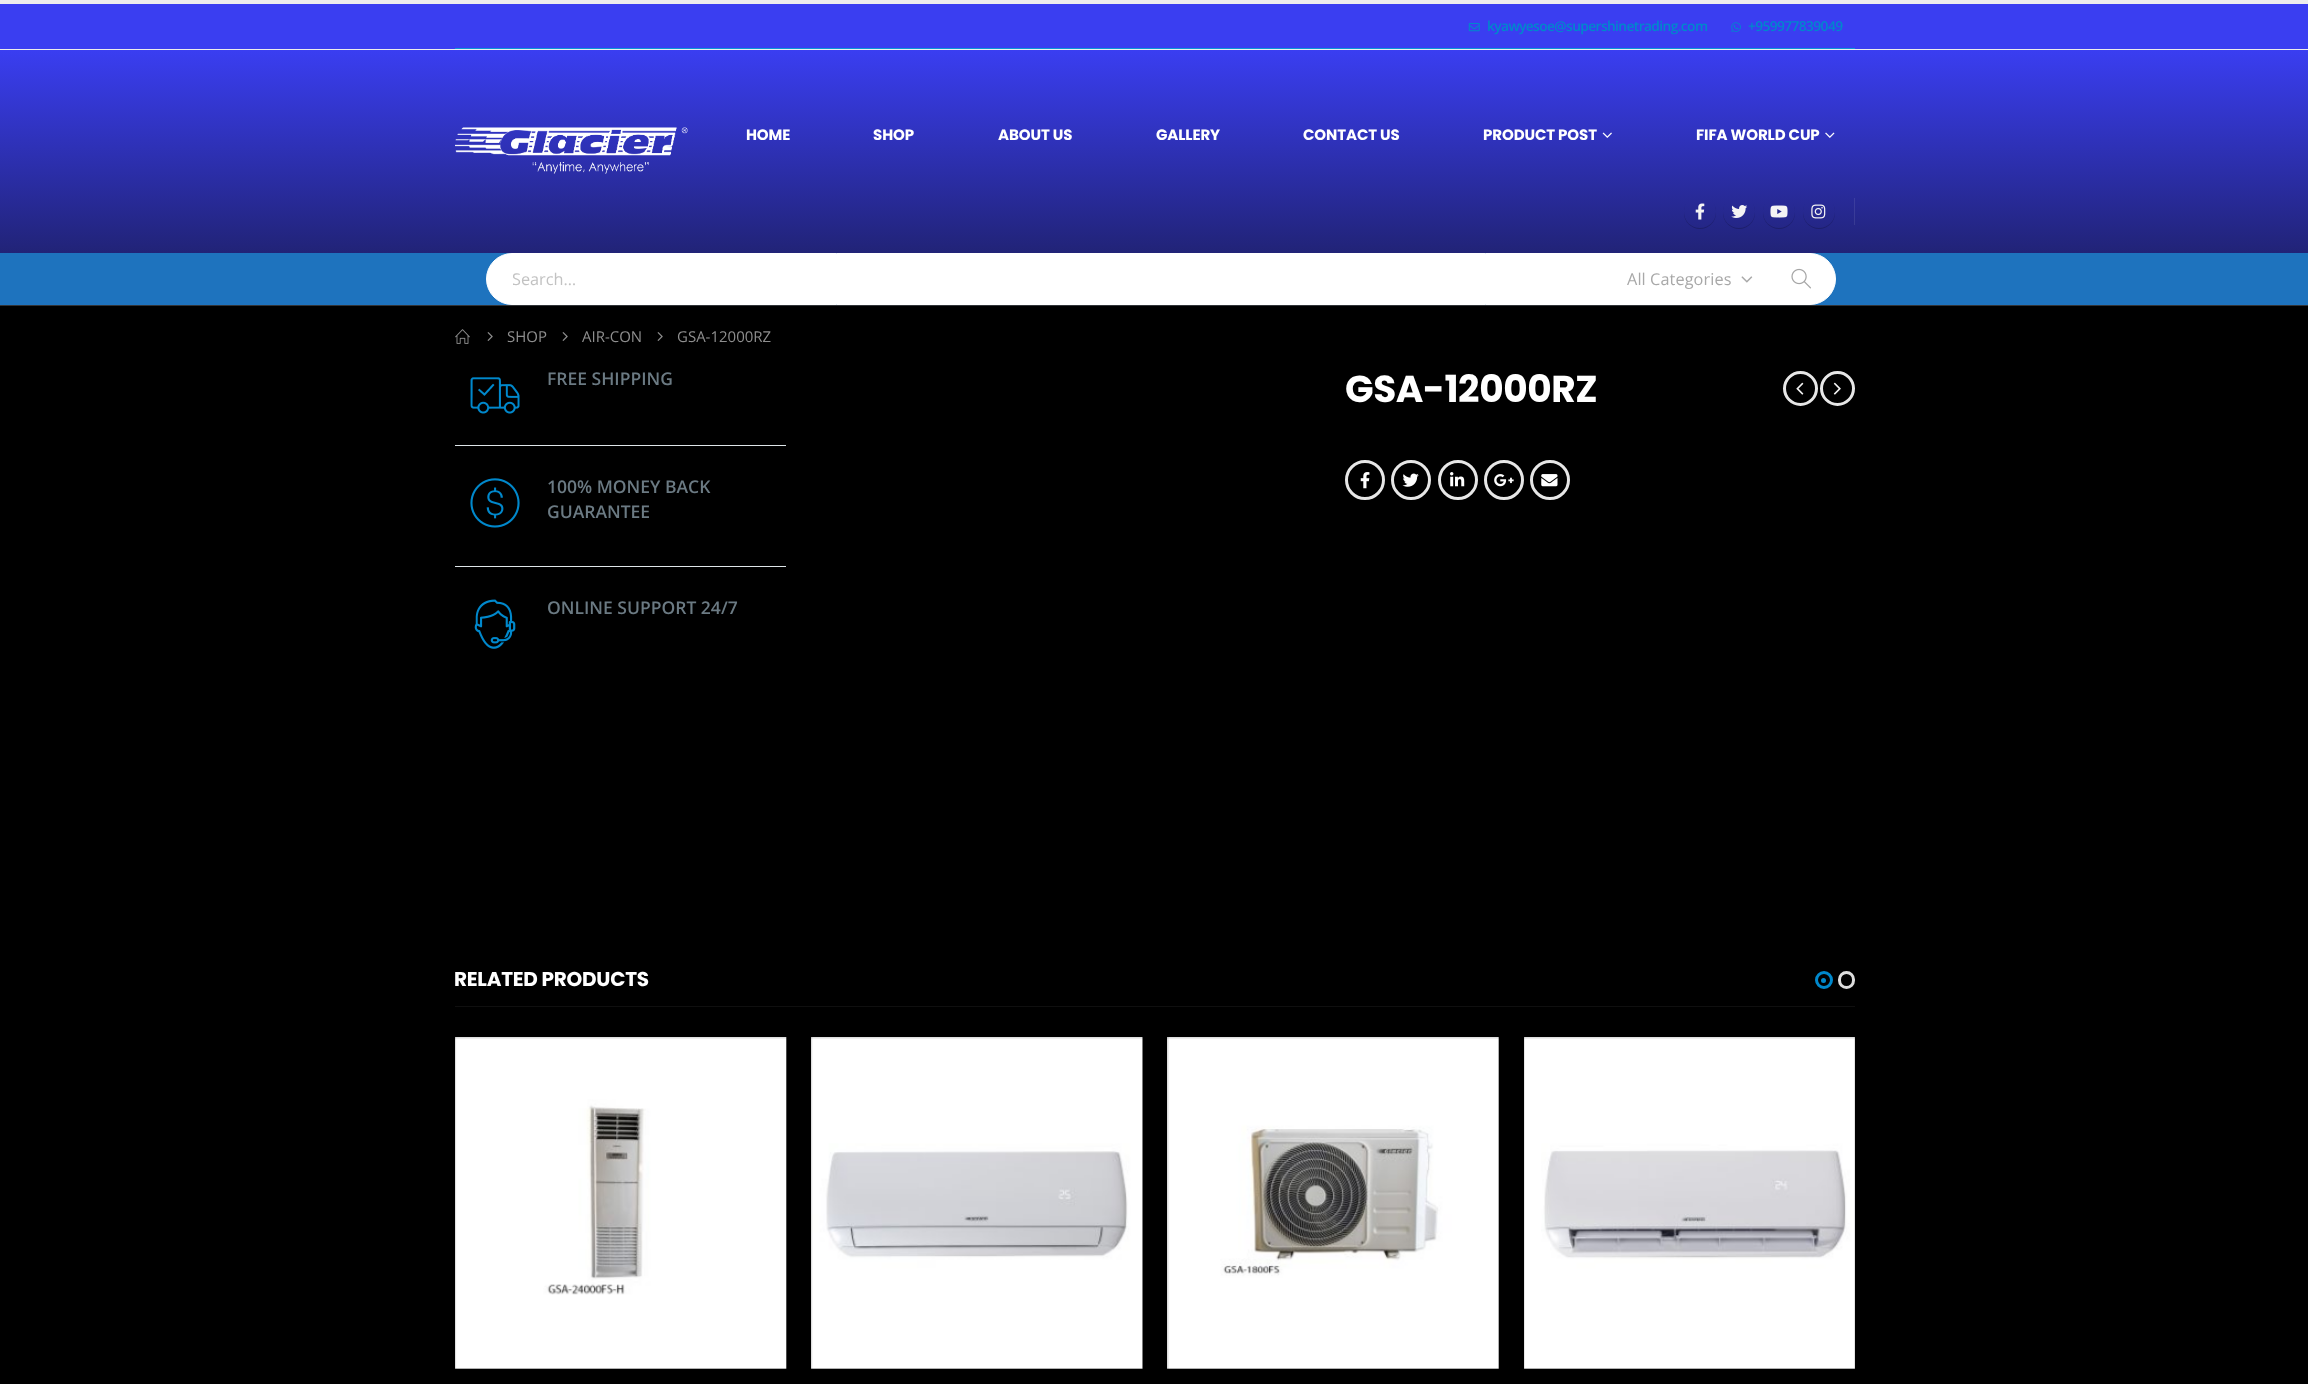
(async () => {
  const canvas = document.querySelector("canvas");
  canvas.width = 2308;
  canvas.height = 1384;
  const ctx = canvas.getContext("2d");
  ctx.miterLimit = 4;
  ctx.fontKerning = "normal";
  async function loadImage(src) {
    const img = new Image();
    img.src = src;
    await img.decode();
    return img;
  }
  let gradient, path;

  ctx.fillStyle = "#000000";
  ctx.fillRect(0, 0, 2308, 1384);
  for (const [x, y, w, h, color] of [
    [0, 253, 2308, 52, "#1e73be"],
    [0, 0, 2308, 4, "#ededed"],
    [0, 305, 2308, 1, "#313438"],
    [0, 4, 2308, 45, "#3a3ef1"],
    [0, 49, 2308, 1, "#ededed"],
  ]) {
    ctx.fillStyle = color;
    ctx.fillRect(x, y, w, h);
  }
  ctx.drawImage(await loadImage("img/1.png"), 1468, 23, 12, 9);
  ctx.drawImage(await loadImage("img/2.png"), 1731, 22, 10, 10);
  ctx.fillStyle = "#0e95d8";
  ctx.fillRect(455, 48, 1400, 1);
  gradient = ctx.createLinearGradient(1154, 50, 1154, 253);
  gradient.addColorStop(0, "#3a3ef1");
  gradient.addColorStop(1, "#212377");
  ctx.fillStyle = gradient;
  ctx.fillRect(0, 50, 2308, 203);
  gradient = ctx.createLinearGradient(1154, 50, 1154, 253);
  gradient.addColorStop(0, "#4c4ff2");
  gradient.addColorStop(1, "#353783");
  ctx.fillStyle = gradient;
  ctx.fillRect(1854, 198, 1, 27);
  ctx.drawImage(await loadImage("img/3.png"), 455, 127, 233, 47);
  ctx.drawImage(await loadImage("img/4.png"), 1602, 132, 10, 6);
  ctx.drawImage(await loadImage("img/5.png"), 1825, 132, 10, 6);
  ctx.save();
  path = new Path2D("M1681 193H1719V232H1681ZM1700 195C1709 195 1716 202 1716 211V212C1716 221 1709 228 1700 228C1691 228 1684 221 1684 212V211C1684 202 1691 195 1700 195Z");
  ctx.clip(path, "evenodd");
  ctx.fillStyle = "rgba(0, 0, 0, 0.2)";
  ctx.filter = "blur(0.5px)";
  ctx.beginPath();
  ctx.roundRect(1684, 196, 32, 33, 16);
  ctx.fill();
  ctx.filter = "none";
  ctx.restore();
  ctx.drawImage(await loadImage("img/6.png"), 1695, 203, 10, 17);
  ctx.save();
  path = new Path2D("M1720 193H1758V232H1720ZM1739 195C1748 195 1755 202 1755 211V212C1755 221 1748 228 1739 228C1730 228 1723 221 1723 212V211C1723 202 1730 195 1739 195Z");
  ctx.clip(path, "evenodd");
  ctx.fillStyle = "rgba(0, 0, 0, 0.2)";
  ctx.filter = "blur(0.5px)";
  ctx.beginPath();
  ctx.roundRect(1723, 196, 32, 33, 16);
  ctx.fill();
  ctx.filter = "none";
  ctx.restore();
  ctx.drawImage(await loadImage("img/7.png"), 1731, 205, 17, 13);
  ctx.save();
  path = new Path2D("M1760 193H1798V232H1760ZM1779 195C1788 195 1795 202 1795 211V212C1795 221 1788 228 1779 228C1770 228 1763 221 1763 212V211C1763 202 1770 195 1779 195Z");
  ctx.clip(path, "evenodd");
  ctx.fillStyle = "rgba(0, 0, 0, 0.2)";
  ctx.filter = "blur(0.5px)";
  ctx.beginPath();
  ctx.roundRect(1763, 196, 32, 33, 16);
  ctx.fill();
  ctx.filter = "none";
  ctx.restore();
  ctx.drawImage(await loadImage("img/8.png"), 1770, 205, 18, 13);
  ctx.save();
  path = new Path2D("M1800 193H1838V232H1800ZM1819 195C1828 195 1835 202 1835 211V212C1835 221 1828 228 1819 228C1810 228 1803 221 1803 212V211C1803 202 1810 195 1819 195Z");
  ctx.clip(path, "evenodd");
  ctx.fillStyle = "rgba(0, 0, 0, 0.2)";
  ctx.filter = "blur(0.5px)";
  ctx.beginPath();
  ctx.roundRect(1803, 196, 32, 33, 16);
  ctx.fill();
  ctx.filter = "none";
  ctx.restore();
  ctx.drawImage(await loadImage("img/9.png"), 1811, 204, 15, 15);
  ctx.fillStyle = "#ffffff";
  ctx.beginPath();
  ctx.roundRect(486.5, 253.5, 1349, 51, 25.5);
  ctx.fill();
  ctx.strokeStyle = "#ffffff";
  ctx.stroke();
  ctx.drawImage(await loadImage("img/10.png"), 1741, 276, 12, 7);
  ctx.drawImage(await loadImage("img/11.png"), 1791, 268, 20, 21);
  ctx.drawImage(await loadImage("img/12.png"), 455, 329, 15, 15);
  ctx.drawImage(await loadImage("img/13.png"), 487, 332, 6, 9);
  ctx.drawImage(await loadImage("img/13.png"), 562, 332, 6, 9);
  ctx.drawImage(await loadImage("img/13.png"), 657, 332, 6, 9);
  ctx.drawImage(await loadImage("img/14.png"), 470, 377, 50, 37);
  ctx.fillStyle = "#dee5e8";
  ctx.fillRect(455, 445, 331, 1);
  ctx.drawImage(await loadImage("img/15.png"), 470, 478, 50, 50);
  ctx.fillRect(455, 566, 331, 1);
  ctx.drawImage(await loadImage("img/16.png"), 474, 599, 42, 50);
  ctx.beginPath();
  ctx.arc(1800.5, 388.5, 16, 0, Math.PI * 2);
  ctx.strokeStyle = "#e7e7e7";
  ctx.lineWidth = 3;
  ctx.stroke();
  ctx.drawImage(await loadImage("img/17.png"), 1796, 382, 8, 13);
  ctx.beginPath();
  ctx.arc(1837.5, 388.5, 16, 0, Math.PI * 2);
  ctx.stroke();
  ctx.drawImage(await loadImage("img/18.png"), 1833, 382, 8, 13);
  ctx.beginPath();
  ctx.arc(1365, 480, 18.5, 0, Math.PI * 2);
  ctx.stroke();
  ctx.drawImage(await loadImage("img/19.png"), 1360, 472, 10, 17);
  ctx.beginPath();
  ctx.arc(1411, 480, 18.5, 0, Math.PI * 2);
  ctx.stroke();
  ctx.drawImage(await loadImage("img/20.png"), 1402, 473, 17, 14);
  ctx.beginPath();
  ctx.arc(1458, 480, 18.5, 0, Math.PI * 2);
  ctx.stroke();
  ctx.drawImage(await loadImage("img/21.png"), 1450, 472, 15, 15);
  ctx.beginPath();
  ctx.arc(1504, 480, 18.5, 0, Math.PI * 2);
  ctx.stroke();
  ctx.drawImage(await loadImage("img/22.png"), 1494, 474, 20, 13);
  ctx.beginPath();
  ctx.arc(1550, 480, 18.5, 0, Math.PI * 2);
  ctx.stroke();
  ctx.drawImage(await loadImage("img/23.png"), 1541, 474, 17, 13);
  ctx.fillStyle = "#0f0f0f";
  ctx.fillRect(455, 1006, 1400, 1);
  ctx.beginPath();
  ctx.arc(1824, 980, 7.5, 0, Math.PI * 2);
  ctx.strokeStyle = "#0088cc";
  ctx.stroke();
  ctx.fillStyle = "#0088cc";
  ctx.beginPath();
  ctx.arc(1823.5, 980.5, 2.5, 0, Math.PI * 2);
  ctx.fill();
  ctx.beginPath();
  ctx.roundRect(1839.5, 972.5, 14, 15, 7);
  ctx.strokeStyle = "#dddddd";
  ctx.stroke();
  ctx.fillStyle = "#0d0d0d";
  ctx.fillRect(455, 1038, 331, 331);
  ctx.drawImage(await loadImage("img/24.png"), 455, 1037, 332, 332);
  ctx.fillRect(811, 1038, 332, 331);
  ctx.drawImage(await loadImage("img/25.png"), 811, 1037, 332, 332);
  ctx.fillRect(1168, 1038, 331, 331);
  ctx.drawImage(await loadImage("img/26.png"), 1167, 1037, 332, 332);
  ctx.fillRect(1524, 1038, 331, 331);
  ctx.drawImage(await loadImage("img/27.png"), 1524, 1037, 331, 332);
  ctx.letterSpacing = "-0.6px";
  ctx.font = "600 13.75px Open Sans";
  ctx.fillStyle = "#0088cc";
  ctx.fillText("kyawyesoe@supershinetrading.com", 1487, 31);
  ctx.fillText("+959977839049", 1748, 31);
  ctx.letterSpacing = "-0.1px";
  ctx.font = "bold 15px Poppins";
  ctx.fillStyle = "#ffffff";
  for (const [text, x, y] of [
    ["HOME", 746, 140],
    ["SHOP", 873, 140],
    ["ABOUT US", 998, 140],
    ["GALLERY", 1156, 140],
    ["CONTACT US", 1303, 140],
    ["PRODUCT POST", 1483, 140],
    ["FIFA WORLD CUP", 1696, 140],
  ]) {
    ctx.fillText(text, x, y);
  }
  ctx.save();
  ctx.beginPath();
  ctx.rect(513, 268, 1076, 22);
  ctx.clip();
  ctx.letterSpacing = "0px";
  ctx.font = "16.25px Open Sans";
  ctx.fillStyle = "#c2c2c2";
  ctx.fillText("Search…", 512, 285);
  ctx.restore();
  ctx.letterSpacing = "0.1px";
  ctx.font = "16.25px Open Sans";
  ctx.fillStyle = "#a8a8a8";
  ctx.fillText("All Categories", 1627, 285);
  ctx.letterSpacing = "0px";
  ctx.font = "15px Open Sans";
  ctx.fillStyle = "#8e8e8e";
  for (const [text, x, y] of [
    ["SHOP", 507, 342],
    ["AIR-CON", 582, 342],
    ["GSA-12000RZ", 677, 342],
  ]) {
    ctx.fillText(text, x, y);
  }
  ctx.font = "600 17.5px Open Sans";
  ctx.fillStyle = "#6b7a83";
  for (const [text, x, y] of [
    ["FREE SHIPPING", 547, 385],
    ["100% MONEY BACK", 547, 493],
    ["GUARANTEE", 547, 518],
    ["ONLINE SUPPORT 24/7", 547, 614],
  ]) {
    ctx.fillText(text, x, y);
  }
  ctx.letterSpacing = "-0.4px";
  ctx.font = "bold 37.5px Poppins";
  ctx.fillStyle = "#ffffff";
  ctx.fillText("GSA-12000RZ", 1345, 402);
  ctx.letterSpacing = "-0.25px";
  ctx.font = "bold 20px Poppins";
  ctx.fillText("RELATED PRODUCTS", 454, 986);
})();
